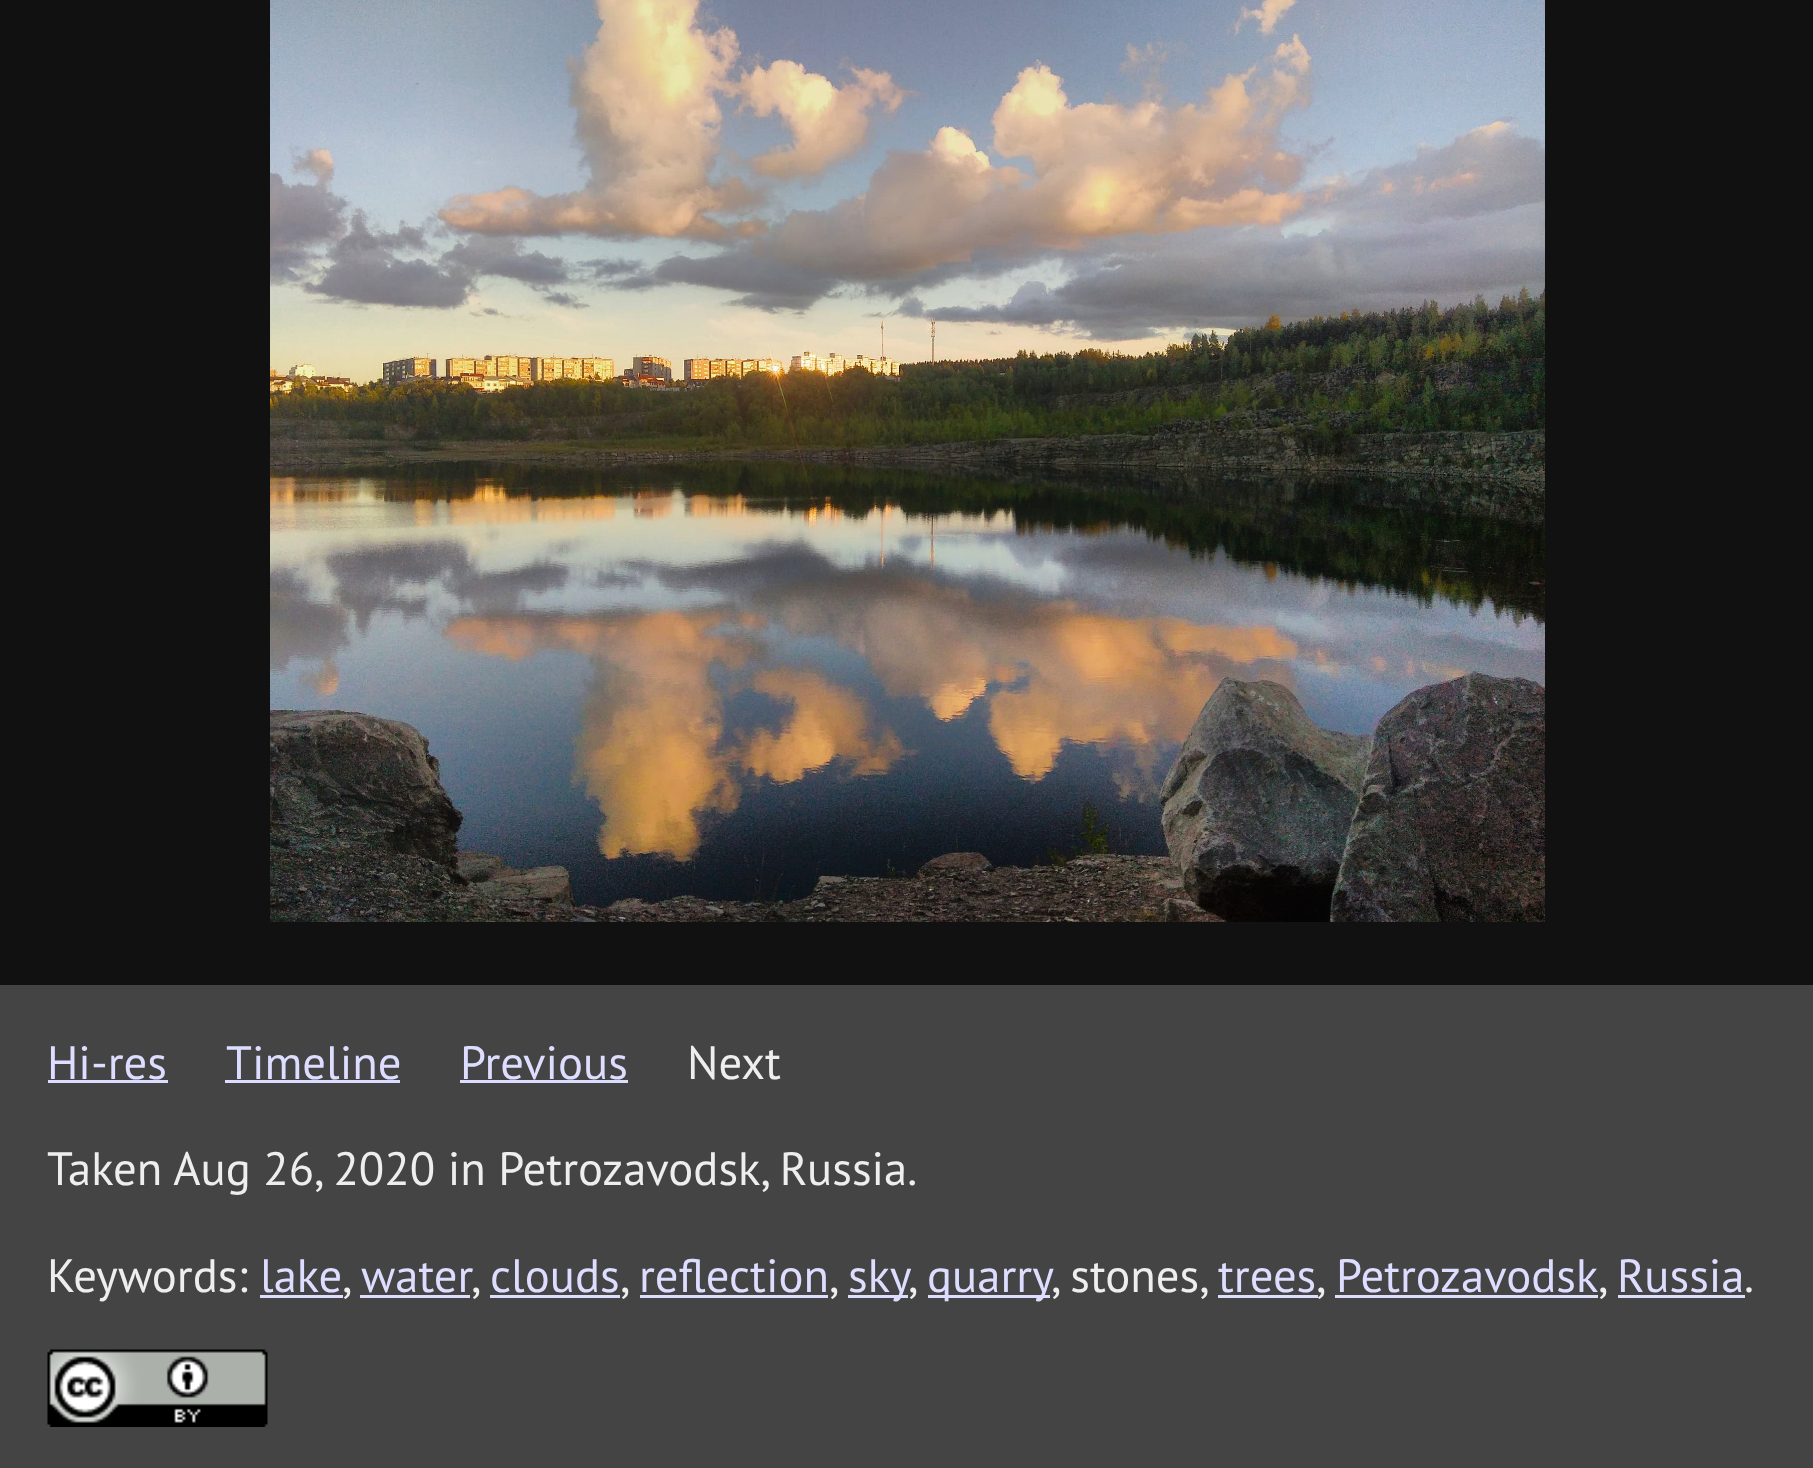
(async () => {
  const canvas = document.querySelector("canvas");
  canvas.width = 1813;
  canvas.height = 1468;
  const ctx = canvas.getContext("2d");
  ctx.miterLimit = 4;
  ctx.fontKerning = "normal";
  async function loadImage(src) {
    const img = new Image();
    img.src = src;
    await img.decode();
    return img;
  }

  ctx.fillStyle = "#444444";
  ctx.fillRect(0, 0, 1813, 1468);
  ctx.fillStyle = "#111111";
  ctx.fillRect(0, 0, 1813, 985);
  ctx.drawImage(await loadImage("img/1.png"), 270, 0, 1275, 922);
  for (const [x, y, w, h, color] of [
    [48, 1080, 120, 3, "#ddddff"],
    [225, 1080, 175, 3, "#ddddff"],
    [460, 1080, 168, 3, "#ddddff"],
    [260, 1295, 83, 3, "#ddddff"],
    [360, 1295, 110, 3, "#ddddff"],
    [490, 1295, 130, 3, "#ddddff"],
    [640, 1295, 188, 3, "#ddddff"],
    [848, 1295, 60, 3, "#ddddff"],
    [928, 1295, 122, 3, "#ddddff"],
    [1218, 1295, 100, 3, "#ddddff"],
    [1335, 1295, 263, 3, "#ddddff"],
    [1618, 1295, 127, 3, "#ddddff"],
  ]) {
    ctx.fillStyle = color;
    ctx.fillRect(x, y, w, h);
  }
  ctx.drawImage(await loadImage("img/2.png"), 47, 1349, 221, 78);
  ctx.font = "46.7px PT Sans";
  for (const [text, x, y] of [
    ["Hi-res", 47, 1079],
    ["Timeline", 226, 1079],
    ["Previous", 460, 1079],
  ]) {
    ctx.fillText(text, x, y);
  }
  ctx.fillStyle = "#eeeeee";
  for (const [text, x, y] of [
    ["Next", 687, 1079],
    ["Taken Aug 26, 2020 in Petrozavodsk, Russia.", 47, 1185],
    ["Keywords:", 47, 1292],
  ]) {
    ctx.fillText(text, x, y);
  }
  ctx.fillStyle = "#ddddff";
  ctx.fillText("lake", 260, 1292);
  ctx.fillStyle = "#eeeeee";
  ctx.fillText(",", 342, 1292);
  ctx.fillStyle = "#ddddff";
  ctx.fillText("water", 361, 1292);
  ctx.fillStyle = "#eeeeee";
  ctx.fillText(",", 471, 1292);
  ctx.fillStyle = "#ddddff";
  ctx.fillText("clouds", 490, 1292);
  ctx.fillStyle = "#eeeeee";
  ctx.fillText(",", 620, 1292);
  ctx.fillStyle = "#ddddff";
  ctx.fillText("reflection", 639, 1292);
  ctx.fillStyle = "#eeeeee";
  ctx.fillText(",", 829, 1292);
  ctx.fillStyle = "#ddddff";
  ctx.fillText("sky", 848, 1292);
  ctx.fillStyle = "#eeeeee";
  ctx.fillText(",", 908, 1292);
  ctx.fillStyle = "#ddddff";
  ctx.fillText("quarry", 927, 1292);
  ctx.fillStyle = "#eeeeee";
  ctx.fillText(", stones,", 1051, 1292);
  ctx.fillStyle = "#ddddff";
  ctx.fillText("trees", 1218, 1292);
  ctx.fillStyle = "#eeeeee";
  ctx.fillText(",", 1316, 1292);
  ctx.fillStyle = "#ddddff";
  ctx.fillText("Petrozavodsk", 1336, 1292);
  ctx.fillStyle = "#eeeeee";
  ctx.fillText(",", 1598, 1292);
  ctx.fillStyle = "#ddddff";
  ctx.fillText("Russia", 1617, 1292);
  ctx.fillStyle = "#eeeeee";
  ctx.fillText(".", 1744, 1292);
})();
